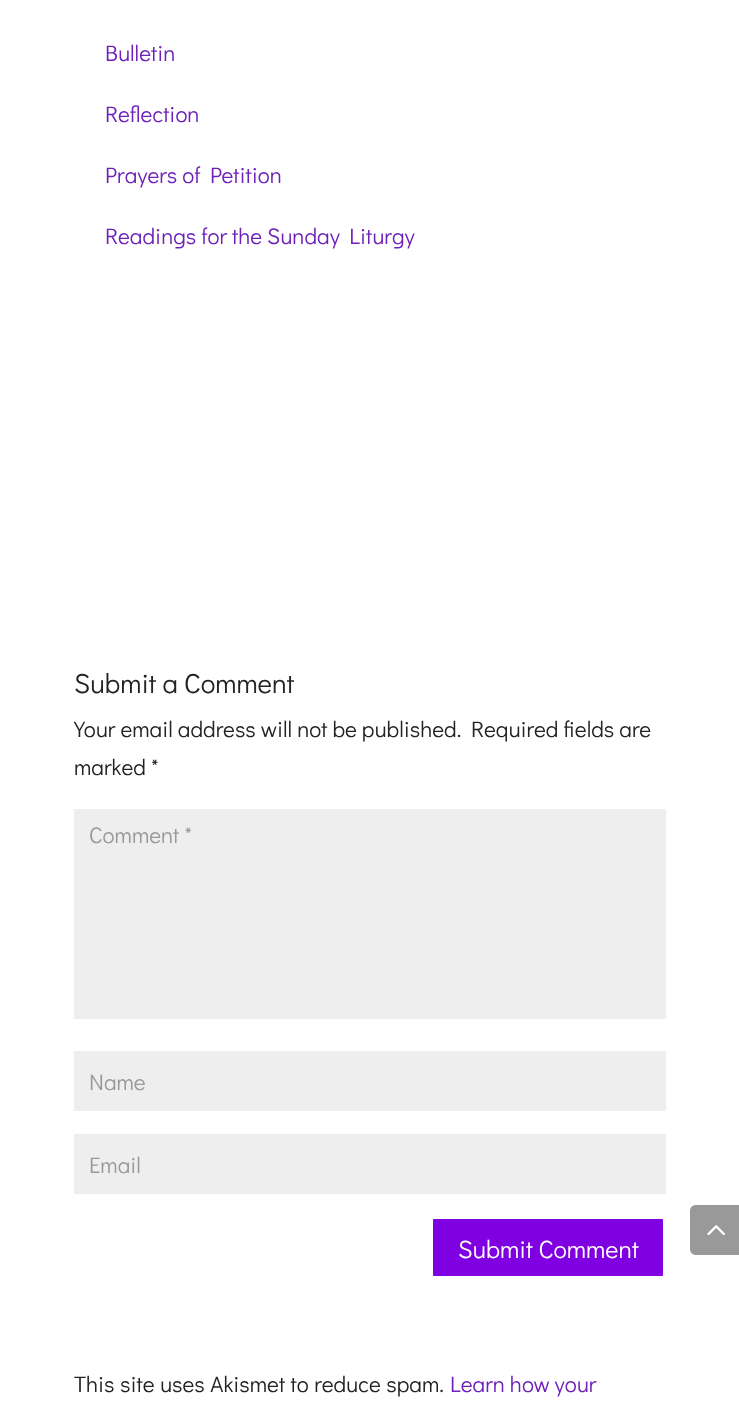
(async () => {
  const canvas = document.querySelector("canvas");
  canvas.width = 739;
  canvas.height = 1411;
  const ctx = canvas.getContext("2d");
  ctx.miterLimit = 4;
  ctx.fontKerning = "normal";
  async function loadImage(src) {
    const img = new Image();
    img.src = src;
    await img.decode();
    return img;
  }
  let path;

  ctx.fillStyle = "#ffffff";
  ctx.fillRect(0, 0, 739, 1411);
  for (const [x, y, w, h, color] of [
    [74, 809, 592, 210, "#eeeeee"],
    [74, 1051, 592, 60, "#eeeeee"],
    [74, 1134, 592, 60, "#eeeeee"],
  ]) {
    ctx.fillStyle = color;
    ctx.fillRect(x, y, w, h);
  }
  ctx.fillStyle = "#7f00e0";
  ctx.beginPath();
  ctx.roundRect(431.5, 1217.5, 233, 60, 2.5);
  ctx.fill();
  ctx.strokeStyle = "#ffffff";
  ctx.lineWidth = 3;
  ctx.stroke();
  ctx.fillStyle = "#999999";
  path = new Path2D("M696 1205H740V1255H696C692.5 1255 690 1252.5 690 1249V1211C690 1207.5 692.5 1205 696 1205Z");
  ctx.fill(path);
  ctx.drawImage(await loadImage("img/1.png"), 707, 1225, 18, 11);
  ctx.font = "22.5px Didact Gothic";
  ctx.fillStyle = "#6d21ba";
  for (const [text, x, y] of [
    ["Bulletin", 105, 61],
    ["Reflection", 105, 122],
    ["Prayers of Petition", 105, 183],
    ["Readings for the Sunday Liturgy", 105, 244],
  ]) {
    ctx.fillText(text, x, y);
  }
  ctx.font = "27.5px Didact Gothic";
  ctx.fillStyle = "#232323";
  ctx.fillText("Submit a Comment", 74, 693);
  ctx.font = "22.5px Didact Gothic";
  for (const [text, x, y] of [
    ["Your email address will not be published.", 74, 737],
    ["Required fields are", 471, 737],
    ["marked *", 74, 775],
  ]) {
    ctx.fillText(text, x, y);
  }
  ctx.fillStyle = "#999999";
  for (const [text, x, y] of [
    ["Comment *", 89, 843],
    ["Name", 89, 1090],
    ["Email", 89, 1173],
  ]) {
    ctx.fillText(text, x, y);
  }
  ctx.font = "25px Didact Gothic";
  ctx.fillStyle = "#ffffff";
  ctx.fillText("Submit Comment", 458, 1258);
  ctx.wordSpacing = "0.5px";
  ctx.font = "22.5px Didact Gothic";
  ctx.fillStyle = "#232323";
  ctx.fillText("This site uses Akismet to reduce spam.", 74, 1392);
  ctx.wordSpacing = "0px";
  ctx.fillStyle = "#6d21ba";
  ctx.fillText("Learn how your", 450, 1392);
})();
